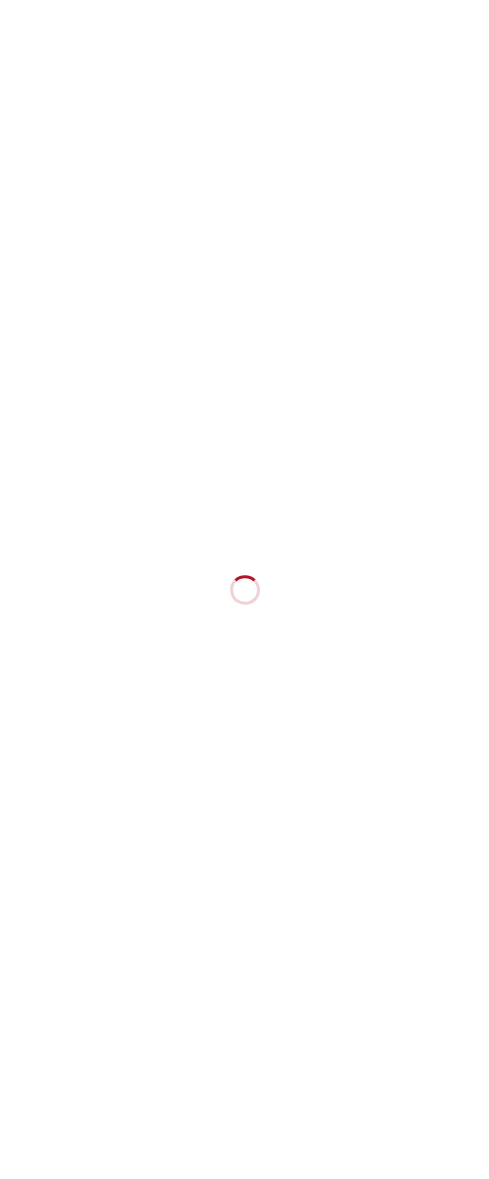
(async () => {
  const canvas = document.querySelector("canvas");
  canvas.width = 489;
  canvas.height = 1179;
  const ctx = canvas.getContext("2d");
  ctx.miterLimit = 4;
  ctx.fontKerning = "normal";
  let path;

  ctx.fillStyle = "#ffffff";
  ctx.fillRect(0, 0, 489, 1179);
  path = new Path2D("M235.5 580.5C240.5 575.5 249.5 575.5 254.5 580.5");
  ctx.strokeStyle = "#b21729";
  ctx.lineWidth = 3;
  ctx.stroke(path);
  path = new Path2D("M254.5 580.5C257 583 258.5 586.5 258.5 590C258.5 606 235 608.5 232 592.5C231 588.5 232.5 583.5 235.5 580.5");
  ctx.strokeStyle = "rgba(178, 23, 41, 0.2)";
  ctx.stroke(path);
})();
